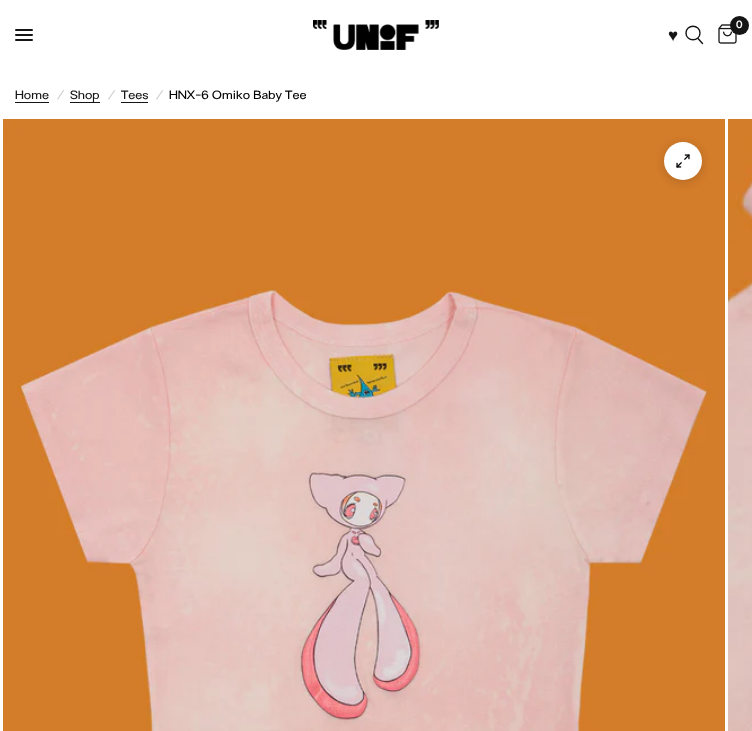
(async () => {
  const canvas = document.querySelector("canvas");
  canvas.width = 752;
  canvas.height = 731;
  const ctx = canvas.getContext("2d");
  ctx.miterLimit = 4;
  ctx.fontKerning = "normal";
  async function loadImage(src) {
    const img = new Image();
    img.src = src;
    await img.decode();
    return img;
  }
  let path;

  ctx.fillStyle = "#ffffff";
  ctx.fillRect(0, 0, 752, 731);
  ctx.fillStyle = "#151515";
  ctx.beginPath();
  ctx.roundRect(15, 29, 18, 2, 1);
  ctx.fill();
  ctx.beginPath();
  ctx.roundRect(15, 34, 18, 2, 1);
  ctx.fill();
  ctx.beginPath();
  ctx.roundRect(15, 39, 18, 2, 1);
  ctx.fill();
  ctx.drawImage(await loadImage("img/1.png"), 313, 20, 126, 30);
  path = new Path2D("M698 38.5L702.5 43.5M700 33C700 42 686 42 686 33C686 24 700 24 700 33Z");
  ctx.strokeStyle = "#151515";
  ctx.lineWidth = 1.4;
  ctx.lineCap = "round";
  ctx.lineJoin = "round";
  ctx.stroke(path);
  ctx.drawImage(await loadImage("img/2.png"), 718, 24, 19, 20);
  ctx.beginPath();
  ctx.arc(739.5, 25.5, 9.5, 0, Math.PI * 2);
  ctx.fill();
  for (const [x, y, w, h, color] of [
    [15, 102, 34, 1, "#151515"],
    [70, 102, 30, 1, "#151515"],
    [121, 102, 27, 1, "#151515"],
  ]) {
    ctx.fillStyle = color;
    ctx.fillRect(x, y, w, h);
  }
  ctx.drawImage(await loadImage("img/3.png"), 3, 119, 722, 612);
  ctx.fillStyle = "rgba(0, 0, 0, 0.15)";
  ctx.filter = "blur(5px)";
  ctx.beginPath();
  ctx.roundRect(664, 144, 38, 38, 19);
  ctx.fill();
  ctx.filter = "none";
  ctx.fillStyle = "#ffffff";
  ctx.beginPath();
  ctx.arc(683, 161, 19, 0, Math.PI * 2);
  ctx.fill();
  ctx.drawImage(await loadImage("img/4.png"), 676, 154, 14, 14);
  ctx.drawImage(await loadImage("img/5.png"), 728, 119, 24, 612);
  ctx.font = "17px Liberation Serif";
  ctx.fillStyle = "#151515";
  ctx.fillText("♥︎", 668, 41);
  ctx.font = "bold 10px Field";
  ctx.fillStyle = "#ffffff";
  ctx.fillText("0", 736, 28);
  ctx.font = "12px Field";
  ctx.fillStyle = "#151515";
  ctx.fillText("Home", 15, 99);
  ctx.font = "italic 12px Field";
  ctx.fillStyle = "#cccccc";
  ctx.fillText("/", 57, 99);
  ctx.font = "12px Field";
  ctx.fillStyle = "#151515";
  ctx.fillText("Shop", 70, 99);
  ctx.font = "italic 12px Field";
  ctx.fillStyle = "#cccccc";
  ctx.fillText("/", 108, 99);
  ctx.font = "12px Field";
  ctx.fillStyle = "#151515";
  ctx.fillText("Tees", 121, 99);
  ctx.font = "italic 12px Field";
  ctx.fillStyle = "#cccccc";
  ctx.fillText("/", 156, 99);
  ctx.font = "12px Field";
  ctx.fillStyle = "#000000";
  ctx.fillText("HNX-6 Omiko Baby Tee", 169, 99);
})();
